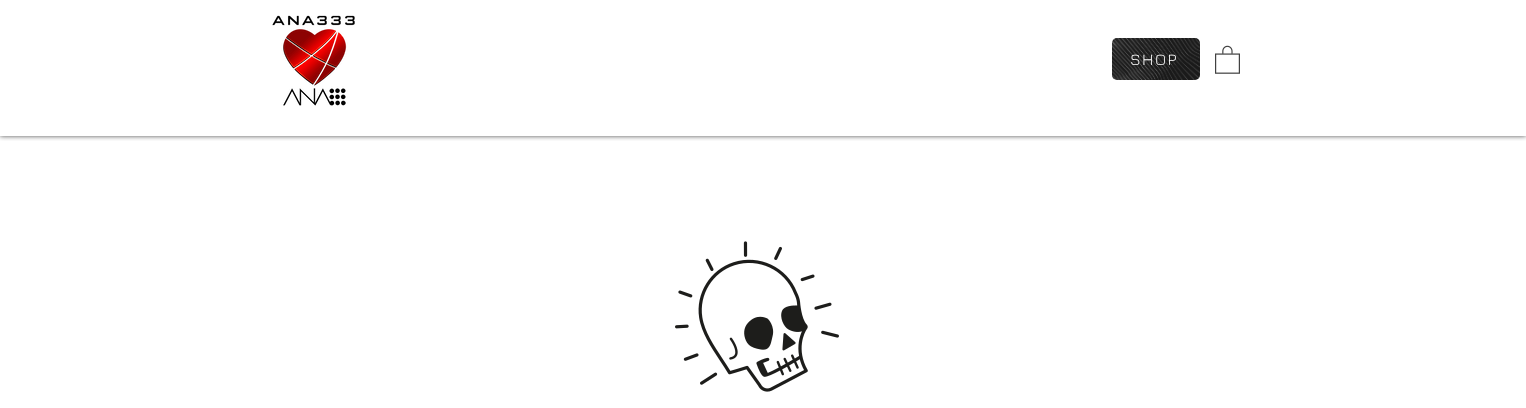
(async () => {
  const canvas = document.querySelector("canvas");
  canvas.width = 1526;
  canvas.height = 408;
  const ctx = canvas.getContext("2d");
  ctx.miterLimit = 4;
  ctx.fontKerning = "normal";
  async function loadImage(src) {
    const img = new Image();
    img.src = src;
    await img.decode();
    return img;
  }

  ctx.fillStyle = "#ffffff";
  ctx.fillRect(0, 0, 1526, 408);
  ctx.save();
  ctx.beginPath();
  ctx.rect(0, 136, 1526, 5);
  ctx.clip();
  ctx.fillStyle = "rgba(0, 0, 0, 0.7)";
  ctx.filter = "blur(2.5px)";
  ctx.beginPath();
  ctx.rect(0, 0, 1526, 136);
  ctx.fill();
  ctx.filter = "none";
  ctx.restore();
  ctx.drawImage(await loadImage("img/1.png"), 272, 15, 83, 91);
  ctx.drawImage(await loadImage("img/2.png"), 1112, 38, 88, 42);
  ctx.drawImage(await loadImage("img/3.png"), 1215, 45, 25, 29);
  ctx.drawImage(await loadImage("img/4.png"), 675, 241, 164, 151);
  ctx.letterSpacing = "1.5px";
  ctx.font = "16px Jura";
  ctx.fillText("SHOP", 1130, 65);
})();
